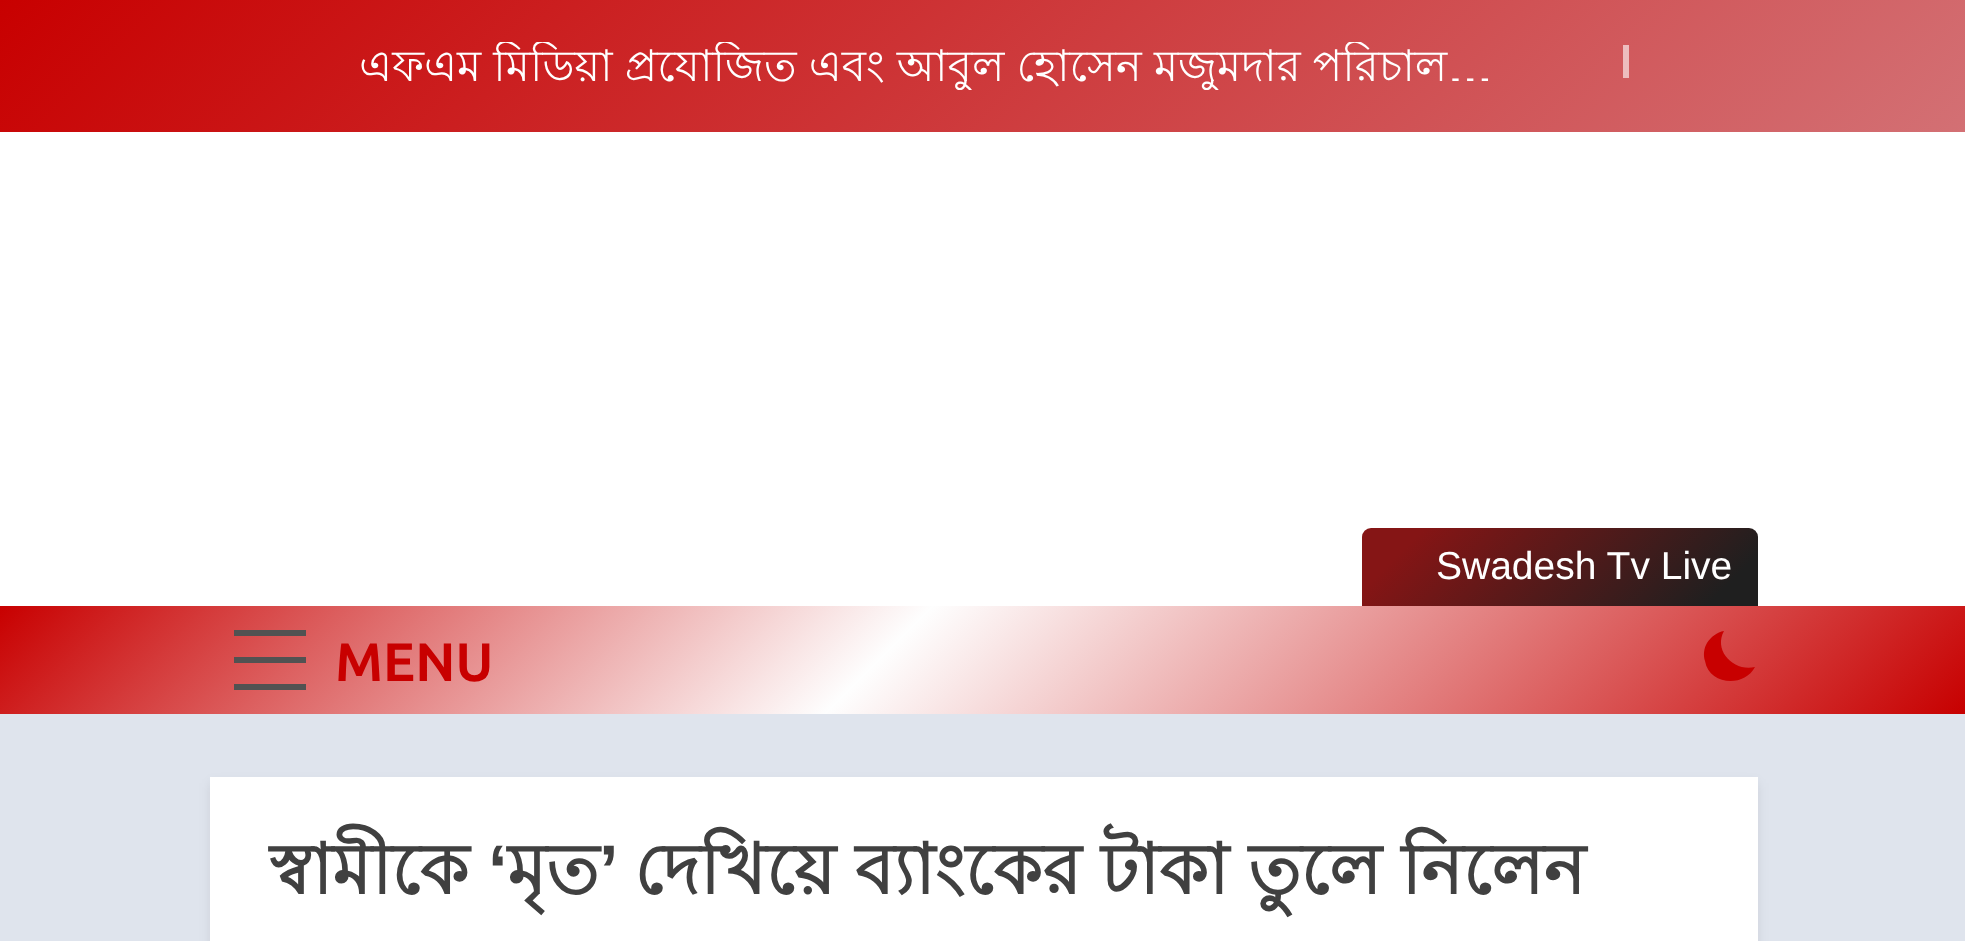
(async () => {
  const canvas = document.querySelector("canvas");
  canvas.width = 1965;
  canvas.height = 941;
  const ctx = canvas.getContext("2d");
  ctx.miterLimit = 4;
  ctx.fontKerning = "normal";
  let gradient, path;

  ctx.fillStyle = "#dfe4ed";
  ctx.fillRect(0, 0, 1965, 941);
  gradient = ctx.createLinearGradient(458, -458, 1507, 590);
  gradient.addColorStop(0, "#c80000");
  gradient.addColorStop(1, "#d37074");
  ctx.fillStyle = gradient;
  ctx.fillRect(0, 0, 1965, 132);
  ctx.fillStyle = "#edbdbe";
  ctx.fillRect(1623, 45, 6, 33);
  ctx.fillStyle = "#ffffff";
  ctx.fillRect(0, 132, 1965, 474);
  gradient = ctx.createLinearGradient(464, 142, 1501, 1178);
  gradient.addColorStop(0, "#c80000");
  gradient.addColorStop(0.45, "#fefefe");
  gradient.addColorStop(1, "#c70000");
  ctx.fillStyle = gradient;
  ctx.fillRect(0, 606, 1965, 108);
  gradient = ctx.createLinearGradient(1442, 449, 1679, 686);
  gradient.addColorStop(0.13, "#851515");
  gradient.addColorStop(0.89, "#1f1f1f");
  ctx.fillStyle = gradient;
  ctx.beginPath();
  ctx.roundRect(1362, 528, 396, 78, [9, 9, 0, 0]);
  ctx.fill();
  for (const [x, y, w, h, color] of [
    [234, 630, 72, 6, "#525252"],
    [234, 657, 72, 6, "#525252"],
    [234, 684, 72, 6, "#525252"],
  ]) {
    ctx.fillStyle = color;
    ctx.fillRect(x, y, w, h);
  }
  ctx.fillStyle = "#c80000";
  path = new Path2D("M1755 667C1734 672 1713 651 1724 631C1717 632 1711 637 1707 643C1704 648 1703 655 1705 661C1709 685 1744 688 1755 667Z");
  ctx.fill(path);
  ctx.fillStyle = "rgba(0, 0, 0, 0.08)";
  ctx.filter = "blur(6px)";
  ctx.beginPath();
  ctx.rect(210, 783, 1548, 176);
  ctx.fill();
  ctx.filter = "none";
  ctx.fillStyle = "#ffffff";
  ctx.fillRect(210, 777, 1548, 164);
  ctx.save();
  ctx.beginPath();
  ctx.rect(258, 42, 1236, 48);
  ctx.clip();
  ctx.font = "43.55px Lohit Bengali";
  ctx.fillText("এফএম মিডিয়া প্রযোজিত এবং আবুল হোসেন মজুমদার পরিচাল…", 359, 81);
  ctx.restore();
  ctx.font = "39px Liberation Sans";
  ctx.fillText("Swadesh Tv Live", 1436, 579);
  ctx.font = "bold 54px Ubuntu";
  ctx.fillStyle = "#c80000";
  ctx.fillText("MENU", 335, 681);
  ctx.font = "bold 70.25px Lohit Bengali";
  ctx.fillStyle = "#404040";
  ctx.fillText("স্বামীকে", 269, 894);
  ctx.font = "bold 70.25px Liberation Sans";
  ctx.fillText("‘", 488, 894);
  ctx.fillText("’", 599, 894);
  ctx.font = "bold 70.25px Lohit Bengali";
  ctx.fillText("দেখিয়ে ব্যাংকের টাকা তুলে নিলেন", 634, 894);
  ctx.fillText("মৃত", 507, 894);
})();
